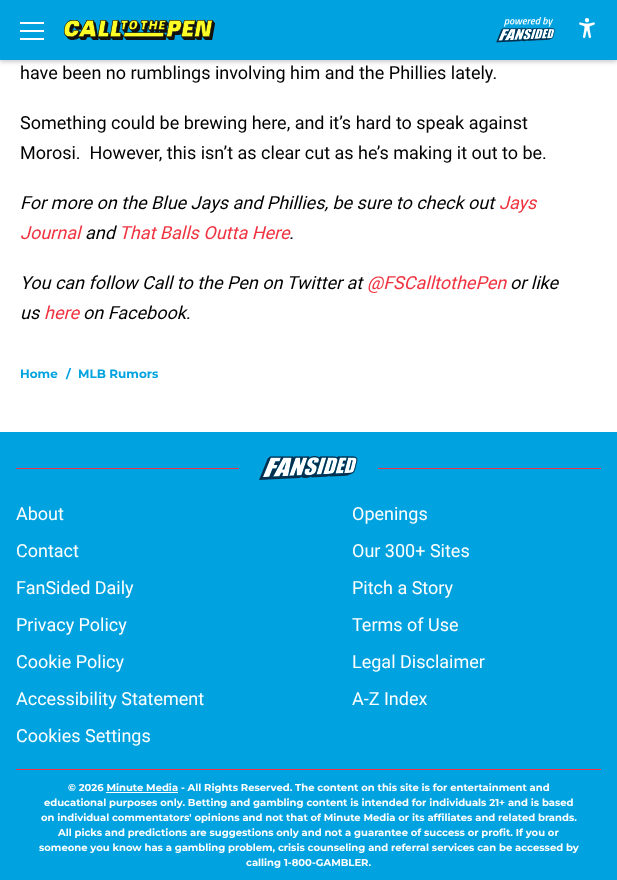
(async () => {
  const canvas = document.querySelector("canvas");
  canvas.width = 617;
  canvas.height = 880;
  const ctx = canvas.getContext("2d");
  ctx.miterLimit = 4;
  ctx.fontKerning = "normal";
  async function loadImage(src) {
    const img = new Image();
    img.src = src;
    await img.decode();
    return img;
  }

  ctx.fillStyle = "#ffffff";
  ctx.fillRect(0, 0, 617, 880);
  ctx.fillStyle = "rgba(0, 0, 0, 0.2)";
  ctx.filter = "blur(2px)";
  ctx.beginPath();
  ctx.rect(0, 2, 617, 60);
  ctx.fill();
  ctx.filter = "none";
  for (const [x, y, w, h, color] of [
    [0, 0, 617, 60, "#00a3e0"],
    [20, 22, 24, 2, "#ffffff"],
    [20, 30, 24, 2, "#ffffff"],
    [20, 38, 24, 2, "#ffffff"],
  ]) {
    ctx.fillStyle = color;
    ctx.fillRect(x, y, w, h);
  }
  ctx.drawImage(await loadImage("img/1.png"), 64, 20, 151, 20);
  ctx.drawImage(await loadImage("img/2.png"), 496, 17, 59, 26);
  ctx.drawImage(await loadImage("img/3.png"), 579, 18, 16, 20);
  ctx.fillStyle = "#00a3e0";
  ctx.fillRect(0, 432, 617, 448);
  ctx.fillStyle = "#ef3340";
  ctx.fillRect(16, 468, 223, 1);
  ctx.drawImage(await loadImage("img/4.png"), 259, 456, 99, 24);
  for (const [x, y, w, h, color] of [
    [378, 468, 223, 1, "#ef3340"],
    [16, 769, 585, 1, "#ef3340"],
    [106, 792, 72, 1, "#ffffff"],
  ]) {
    ctx.fillStyle = color;
    ctx.fillRect(x, y, w, h);
  }
  ctx.font = "18px Roboto";
  ctx.fillStyle = "#000000";
  for (const [text, x, y] of [
    ["have been no rumblings involving him and the Phillies lately.", 20, 79],
    ["Something could be brewing here, and it’s hard to speak against", 20, 129],
    ["Morosi.  However, this isn’t as clear cut as he’s making it out to be.", 20, 159],
  ]) {
    ctx.fillText(text, x, y);
  }
  ctx.font = "italic 18px Roboto";
  ctx.fillText("For more on the Blue Jays and Phillies, be sure to check out", 20, 209);
  ctx.fillStyle = "#ef3340";
  ctx.fillText("Jays", 499, 209);
  ctx.fillText("Journal", 20, 239);
  ctx.fillStyle = "#000000";
  ctx.fillText("and", 85, 239);
  ctx.fillStyle = "#ef3340";
  ctx.fillText("That Balls Outta Here", 119, 239);
  ctx.fillStyle = "#000000";
  ctx.fillText(".", 289, 239);
  ctx.fillText("You can follow Call to the Pen on Twitter at", 20, 289);
  ctx.fillStyle = "#ef3340";
  ctx.fillText("@FSCalltothePen", 367, 289);
  ctx.fillStyle = "#000000";
  ctx.fillText("or like", 510, 289);
  ctx.fillText("us", 20, 319);
  ctx.fillStyle = "#ef3340";
  ctx.fillText("here", 44, 319);
  ctx.fillStyle = "#000000";
  ctx.fillText("on Facebook.", 83, 319);
  ctx.font = "100 12px Montserrat";
  ctx.fillStyle = "#00a3e0";
  for (const [text, x, y] of [
    ["Home", 20, 378],
    ["/", 66, 378],
    ["MLB Rumors", 78, 378],
  ]) {
    ctx.fillText(text, x, y);
  }
  ctx.font = "18px Roboto";
  ctx.fillStyle = "#ffffff";
  for (const [text, x, y] of [
    ["About", 16, 520],
    ["Openings", 352, 520],
    ["Contact", 16, 557],
    ["Our 300+ Sites", 352, 557],
    ["FanSided Daily", 16, 594],
    ["Pitch a Story", 352, 594],
    ["Privacy Policy", 16, 631],
    ["Terms of Use", 352, 631],
    ["Cookie Policy", 16, 668],
    ["Legal Disclaimer", 352, 668],
    ["Accessibility Statement", 16, 705],
    ["A-Z Index", 352, 705],
    ["Cookies Settings", 16, 742],
  ]) {
    ctx.fillText(text, x, y);
  }
  ctx.font = "100 10px Montserrat";
  for (const [text, x, y] of [
    ["© 2026 Minute Media - All Rights Reserved. The content on this site is for entertainment and", 68, 791],
    ["educational purposes only. Betting and gambling content is intended for individuals 21+ and is based", 44, 806],
    ["on individual commentators' opinions and not that of Minute Media or its affiliates and related brands.", 41, 821],
    ["All picks and predictions are suggestions only and not a guarantee of success or profit. If you or", 58, 836],
    ["someone you know has a gambling problem, crisis counseling and referral services can be accessed by", 39, 851],
    ["calling 1-800-GAMBLER.", 246, 866],
  ]) {
    ctx.fillText(text, x, y);
  }
})();
